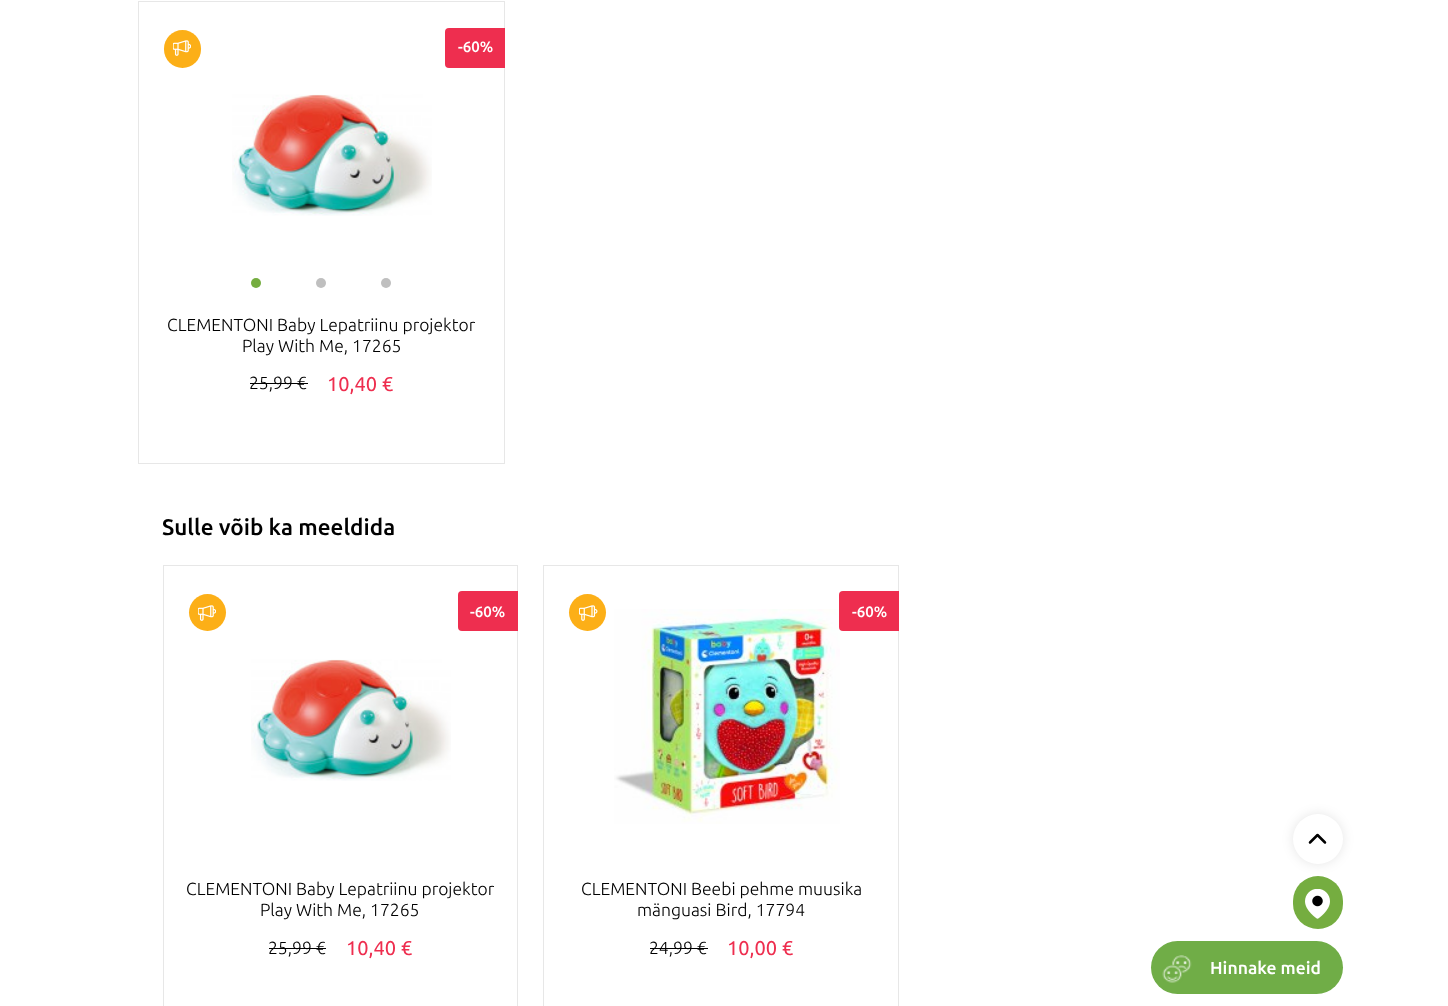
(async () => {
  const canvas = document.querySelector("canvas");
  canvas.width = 1448;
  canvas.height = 1006;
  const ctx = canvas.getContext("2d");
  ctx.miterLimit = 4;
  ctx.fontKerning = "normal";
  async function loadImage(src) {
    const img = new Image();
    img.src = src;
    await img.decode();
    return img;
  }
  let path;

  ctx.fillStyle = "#ffffff";
  ctx.fillRect(0, 0, 1448, 1006);
  ctx.strokeStyle = "#e7e7e7";
  ctx.strokeRect(138.5, 1.5, 366, 462);
  ctx.fillStyle = "#fcaf17";
  ctx.beginPath();
  ctx.roundRect(164, 30, 37, 38, 18.5);
  ctx.fill();
  ctx.drawImage(await loadImage("img/1.png"), 173, 40, 18, 16);
  ctx.fillStyle = "#ee2e4f";
  ctx.beginPath();
  ctx.roundRect(445, 28, 60, 40, [4, 0, 0, 4]);
  ctx.fill();
  ctx.drawImage(await loadImage("img/2.png"), 232, 94, 200, 122);
  ctx.fillStyle = "#75ad40";
  ctx.beginPath();
  ctx.arc(256, 283, 5, 0, Math.PI * 2);
  ctx.fill();
  ctx.fillStyle = "#bfbfbf";
  ctx.beginPath();
  ctx.arc(321, 283, 5, 0, Math.PI * 2);
  ctx.fill();
  ctx.beginPath();
  ctx.arc(386, 283, 5, 0, Math.PI * 2);
  ctx.fill();
  ctx.fillStyle = "#000000";
  ctx.fillRect(250, 383, 58, 1);
  ctx.strokeRect(163.5, 565.5, 354, 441);
  ctx.fillStyle = "#fcaf17";
  ctx.beginPath();
  ctx.arc(207.5, 612.5, 18.5, 0, Math.PI * 2);
  ctx.fill();
  ctx.drawImage(await loadImage("img/1.png"), 198, 605, 18, 16);
  ctx.fillStyle = "#ee2e4f";
  ctx.beginPath();
  ctx.roundRect(458, 591, 60, 40, [4, 0, 0, 4]);
  ctx.fill();
  ctx.drawImage(await loadImage("img/3.png"), 251, 659, 200, 122);
  ctx.fillStyle = "#000000";
  ctx.fillRect(269, 948, 57, 1);
  ctx.strokeRect(543.5, 565.5, 355, 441);
  ctx.fillStyle = "#fcaf17";
  ctx.beginPath();
  ctx.arc(587.5, 612.5, 18.5, 0, Math.PI * 2);
  ctx.fill();
  ctx.drawImage(await loadImage("img/4.png"), 579, 605, 19, 16);
  ctx.drawImage(await loadImage("img/5.png"), 614, 609, 226, 215);
  ctx.fillStyle = "#ee2e4f";
  ctx.beginPath();
  ctx.roundRect(839, 591, 60, 40, [4, 0, 0, 4]);
  ctx.fill();
  ctx.fillStyle = "#000000";
  ctx.fillRect(650, 948, 58, 1);
  ctx.fillStyle = "rgba(0, 0, 0, 0.1)";
  ctx.filter = "blur(6px)";
  ctx.beginPath();
  ctx.roundRect(1293, 814, 50, 50, 25);
  ctx.fill();
  ctx.filter = "none";
  ctx.fillStyle = "#ffffff";
  ctx.beginPath();
  ctx.arc(1318, 839, 25, 0, Math.PI * 2);
  ctx.fill();
  path = new Path2D("M1325 842.5L1317.5 835L1310 842.5");
  ctx.strokeStyle = "#000000";
  ctx.lineWidth = 2.5;
  ctx.lineCap = "round";
  ctx.lineJoin = "round";
  ctx.stroke(path);
  ctx.fillStyle = "#75ad40";
  ctx.beginPath();
  ctx.roundRect(1293, 876, 50, 53, 25);
  ctx.fill();
  ctx.drawImage(await loadImage("img/6.png"), 1305, 889, 25, 30);
  ctx.fillStyle = "#70ad47";
  ctx.beginPath();
  ctx.roundRect(1151, 941, 192, 53, 26.5);
  ctx.fill();
  ctx.drawImage(await loadImage("img/7.png"), 1162, 955, 30, 28);
  ctx.font = "500 15px Ubuntu";
  ctx.fillStyle = "#ffffff";
  ctx.fillText("-60%", 458, 52);
  ctx.font = "300 17.5px Ubuntu";
  ctx.fillStyle = "#000000";
  for (const [text, x, y] of [
    ["CLEMENTONI Baby Lepatriinu projektor", 167, 331],
    ["Play With Me, 17265", 242, 352],
    ["25,99 €", 249, 389],
  ]) {
    ctx.fillText(text, x, y);
  }
  ctx.font = "20px Ubuntu";
  ctx.fillStyle = "#ee2e4f";
  ctx.fillText("10,40 €", 327, 391);
  ctx.font = "500 22.5px Ubuntu";
  ctx.fillStyle = "#000000";
  ctx.fillText("Sulle võib ka meeldida", 162, 535);
  ctx.font = "500 15px Ubuntu";
  ctx.fillStyle = "#ffffff";
  ctx.fillText("-60%", 470, 617);
  ctx.font = "300 17.5px Ubuntu";
  ctx.fillStyle = "#000000";
  for (const [text, x, y] of [
    ["CLEMENTONI Baby Lepatriinu projektor", 186, 895],
    ["Play With Me, 17265", 260, 916],
    ["25,99 €", 268, 954],
  ]) {
    ctx.fillText(text, x, y);
  }
  ctx.font = "20px Ubuntu";
  ctx.fillStyle = "#ee2e4f";
  ctx.fillText("10,40 €", 346, 955);
  ctx.font = "500 15px Ubuntu";
  ctx.fillStyle = "#ffffff";
  ctx.fillText("-60%", 852, 617);
  ctx.font = "300 17.5px Ubuntu";
  ctx.fillStyle = "#000000";
  for (const [text, x, y] of [
    ["CLEMENTONI Beebi pehme muusika", 581, 895],
    ["mänguasi Bird, 17794", 637, 916],
    ["24,99 €", 649, 954],
  ]) {
    ctx.fillText(text, x, y);
  }
  ctx.font = "20px Ubuntu";
  ctx.fillStyle = "#ee2e4f";
  ctx.fillText("10,00 €", 727, 955);
  ctx.font = "500 17.5px Ubuntu";
  ctx.fillStyle = "#ffffff";
  ctx.fillText("Hinnake meid", 1210, 974);
})();
